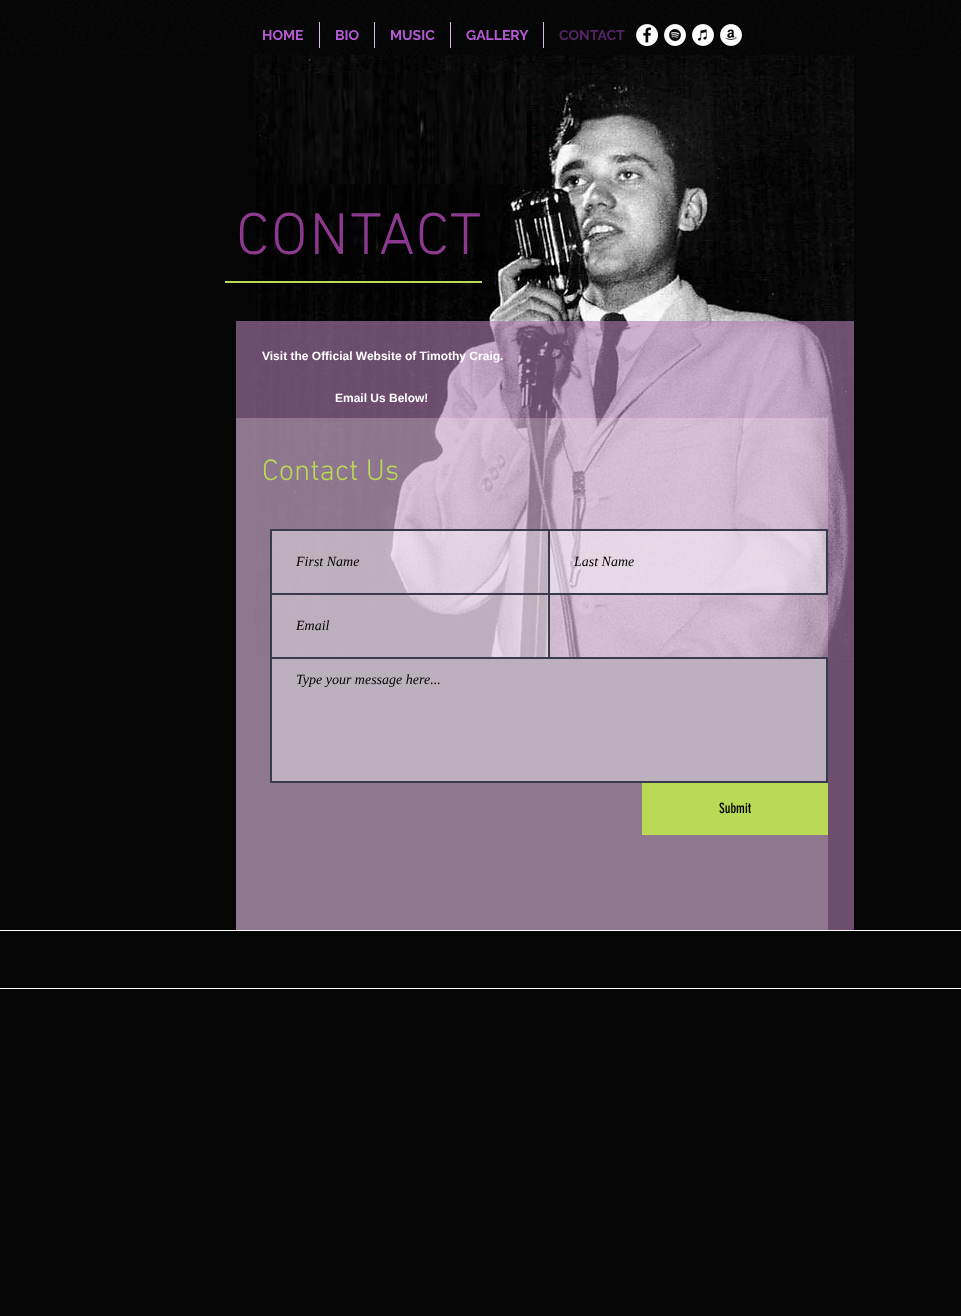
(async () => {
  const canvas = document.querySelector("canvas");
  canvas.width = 961;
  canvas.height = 1316;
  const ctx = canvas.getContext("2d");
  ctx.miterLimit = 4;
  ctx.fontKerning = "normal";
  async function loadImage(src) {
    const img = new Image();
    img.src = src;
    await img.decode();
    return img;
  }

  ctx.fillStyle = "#050505";
  ctx.fillRect(0, 0, 961, 1316);
  ctx.drawImage(await loadImage("img/1.png"), 0, 0, 961, 55);
  for (const [x, y, w, h, color] of [
    [319, 22, 1, 26, "#d8bde2"],
    [374, 22, 1, 26, "#d8bde2"],
    [450, 22, 1, 26, "#d8bde2"],
    [543, 22, 1, 26, "#d8bde2"],
  ]) {
    ctx.fillStyle = color;
    ctx.fillRect(x, y, w, h);
  }
  ctx.drawImage(await loadImage("img/2.png"), 636, 24, 22, 22);
  ctx.drawImage(await loadImage("img/3.png"), 664, 24, 22, 22);
  ctx.drawImage(await loadImage("img/4.png"), 692, 24, 22, 22);
  ctx.drawImage(await loadImage("img/5.png"), 720, 24, 22, 22);
  ctx.drawImage(await loadImage("img/6.png"), 254, 55, 600, 604);
  for (const [x, y, w, h, color] of [
    [225, 281, 257, 2, "#bada55"],
    [236, 321, 618, 609, "rgba(179, 126, 180, 0.6)"],
    [236, 418, 592, 512, "rgba(255, 255, 255, 0.23)"],
  ]) {
    ctx.fillStyle = color;
    ctx.fillRect(x, y, w, h);
  }
  ctx.fillStyle = "rgba(255, 255, 255, 0.42)";
  ctx.beginPath();
  ctx.rect(271, 530, 278, 64);
  ctx.fill();
  ctx.strokeStyle = "#373b4d";
  ctx.lineWidth = 2;
  ctx.stroke();
  ctx.beginPath();
  ctx.rect(549, 530, 278, 64);
  ctx.fill();
  ctx.stroke();
  ctx.beginPath();
  ctx.rect(271, 594, 278, 64);
  ctx.fill();
  ctx.stroke();
  ctx.beginPath();
  ctx.rect(271, 658, 556, 124);
  ctx.fill();
  ctx.stroke();
  for (const [x, y, w, h, color] of [
    [642, 783, 186, 52, "#bada55"],
    [0, 930, 961, 1, "#ffffff"],
    [0, 988, 961, 1, "#ffffff"],
  ]) {
    ctx.fillStyle = color;
    ctx.fillRect(x, y, w, h);
  }
  ctx.font = "bold 14px Raleway";
  ctx.fillStyle = "#b45ad3";
  for (const [text, x, y] of [
    ["HOME", 262, 40],
    ["BIO", 335, 40],
    ["MUSIC", 390, 40],
    ["GALLERY", 466, 40],
  ]) {
    ctx.fillText(text, x, y);
  }
  ctx.fillStyle = "#532563";
  ctx.fillText("CONTACT", 559, 40);
  ctx.letterSpacing = "1.75px";
  ctx.font = "300 60px 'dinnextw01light'";
  ctx.fillStyle = "#8d398f";
  ctx.fillText("CONTACT", 236, 254);
  ctx.letterSpacing = "0px";
  ctx.font = "bold 12px Liberation Sans";
  ctx.fillStyle = "#ffffff";
  ctx.fillText("Visit the Official Website of Timothy Craig.", 262, 360);
  ctx.fillText("Email Us Below!", 335, 402);
  ctx.font = "300 30px 'dinnextw01light'";
  ctx.fillStyle = "#bada55";
  ctx.fillText("Contact Us", 262, 480);
  ctx.font = "italic 14px Liberation Serif";
  ctx.fillStyle = "#000000";
  for (const [text, x, y] of [
    ["First Name", 296, 566],
    ["Last Name", 574, 566],
    ["Email", 296, 630],
    ["Type your message here...", 296, 684],
  ]) {
    ctx.fillText(text, x, y);
  }
  ctx.font = "14px 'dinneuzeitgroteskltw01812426'";
  ctx.fillText("Submit", 719, 813);
})();
